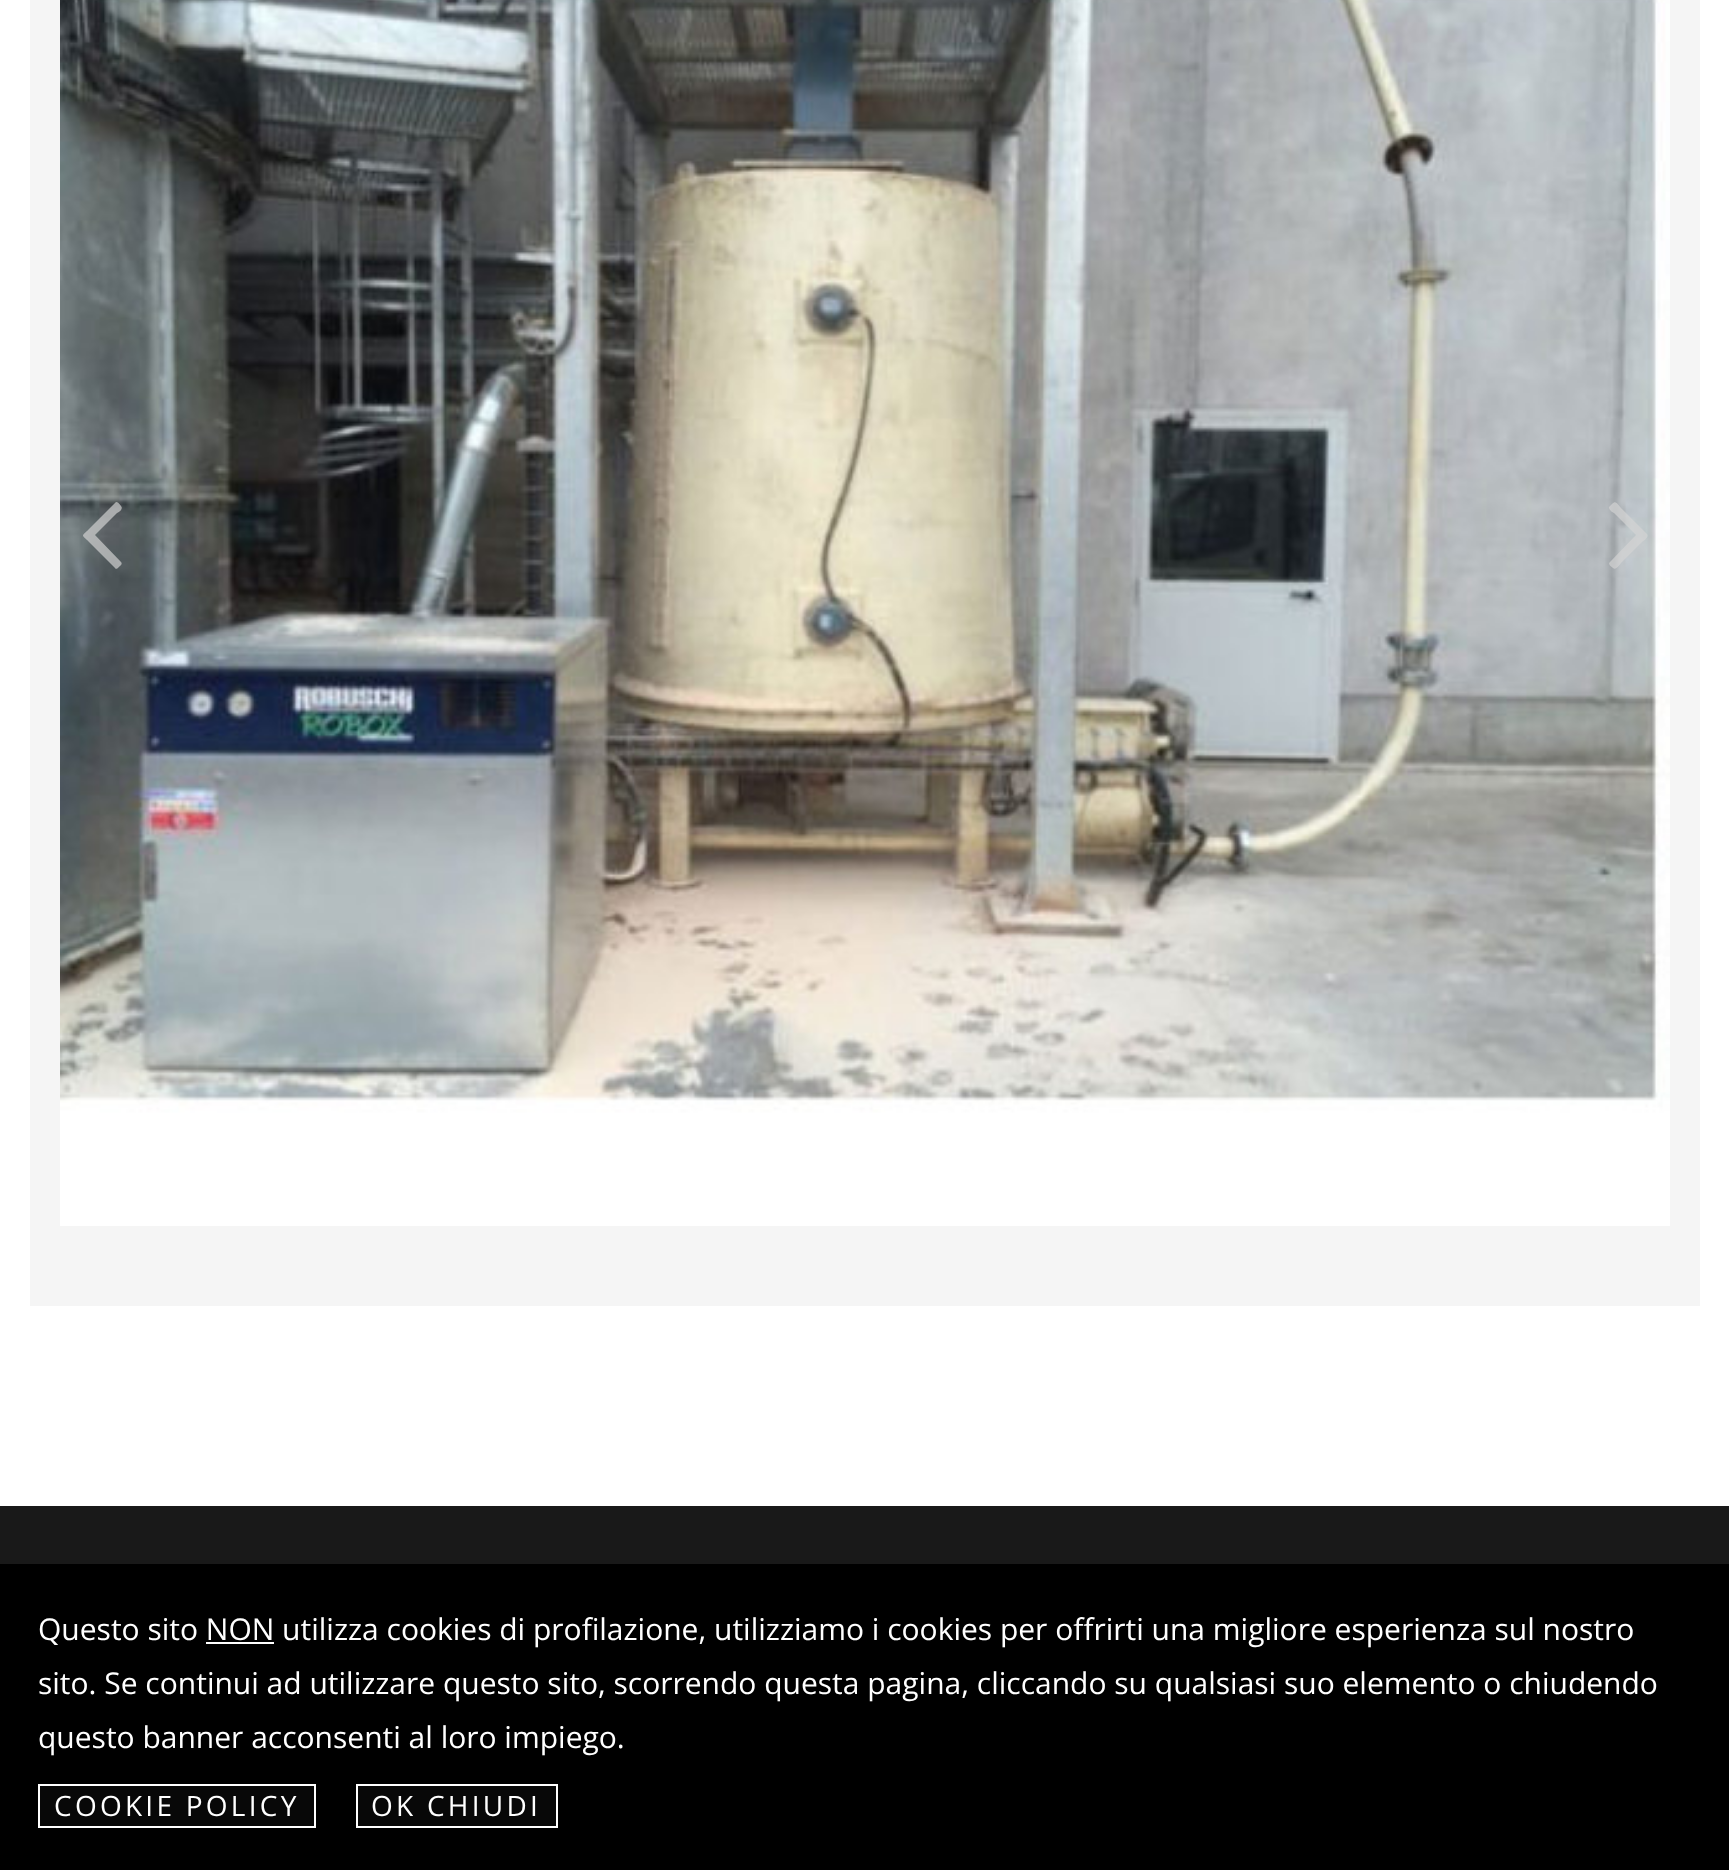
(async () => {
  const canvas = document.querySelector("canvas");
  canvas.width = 1729;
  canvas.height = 1870;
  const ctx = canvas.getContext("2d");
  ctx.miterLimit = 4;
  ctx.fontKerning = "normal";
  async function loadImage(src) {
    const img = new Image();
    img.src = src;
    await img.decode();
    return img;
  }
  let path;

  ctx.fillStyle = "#ffffff";
  ctx.fillRect(0, 0, 1729, 1870);
  ctx.fillStyle = "#f5f5f5";
  ctx.fillRect(30, 0, 1670, 1306);
  ctx.drawImage(await loadImage("img/1.png"), 60, 0, 1610, 1226);
  ctx.fillStyle = "rgba(212, 212, 212, 0.68)";
  path = new Path2D("M121 506C124 509 118 513 117 513L95 535L121 562C123 564 120 566 119 567C118 568 116 570 115 568L89 542C81 534 81 537 89 529L115 503C117 500 120 505 121 506Z");
  ctx.fill(path);
  path = new Path2D("M1647 534C1650 537 1642 542 1642 542L1621 563C1621 563 1616 571 1613 568C1612 567 1607 564 1610 562L1636 535L1614 513C1613 513 1608 509 1609 507L1612 504C1616 500 1617 504 1621 508Z");
  ctx.fill(path);
  ctx.drawImage(await loadImage("img/2.png"), 0, 1506, 1729, 58);
  ctx.fillStyle = "#000000";
  ctx.fillRect(0, 1564, 1729, 306);
  ctx.fillStyle = "#ffffff";
  ctx.fillRect(206, 1642, 68, 2);
  ctx.fillStyle = "#080808";
  ctx.beginPath();
  ctx.rect(39, 1785, 276, 42);
  ctx.fill();
  ctx.strokeStyle = "#ffffff";
  ctx.lineWidth = 2;
  ctx.stroke();
  ctx.beginPath();
  ctx.rect(357, 1785, 200, 42);
  ctx.fill();
  ctx.stroke();
  ctx.font = "30px Open Sans";
  ctx.fillStyle = "#ffffff";
  for (const [text, x, y] of [
    ["Questo sito NON utilizza cookies di profilazione, utilizziamo i cookies per offrirti una migliore esperienza sul nostro", 38, 1640],
    ["sito. Se continui ad utilizzare questo sito, scorrendo questa pagina, cliccando su qualsiasi suo elemento o chiudendo", 38, 1694],
    ["questo banner acconsenti al loro impiego.", 38, 1748],
  ]) {
    ctx.fillText(text, x, y);
  }
  ctx.letterSpacing = "3.25px";
  ctx.font = "28px Open Sans";
  ctx.fillText("COOKIE POLICY", 54, 1816);
  ctx.fillText("OK CHIUDI", 371, 1816);
})();
